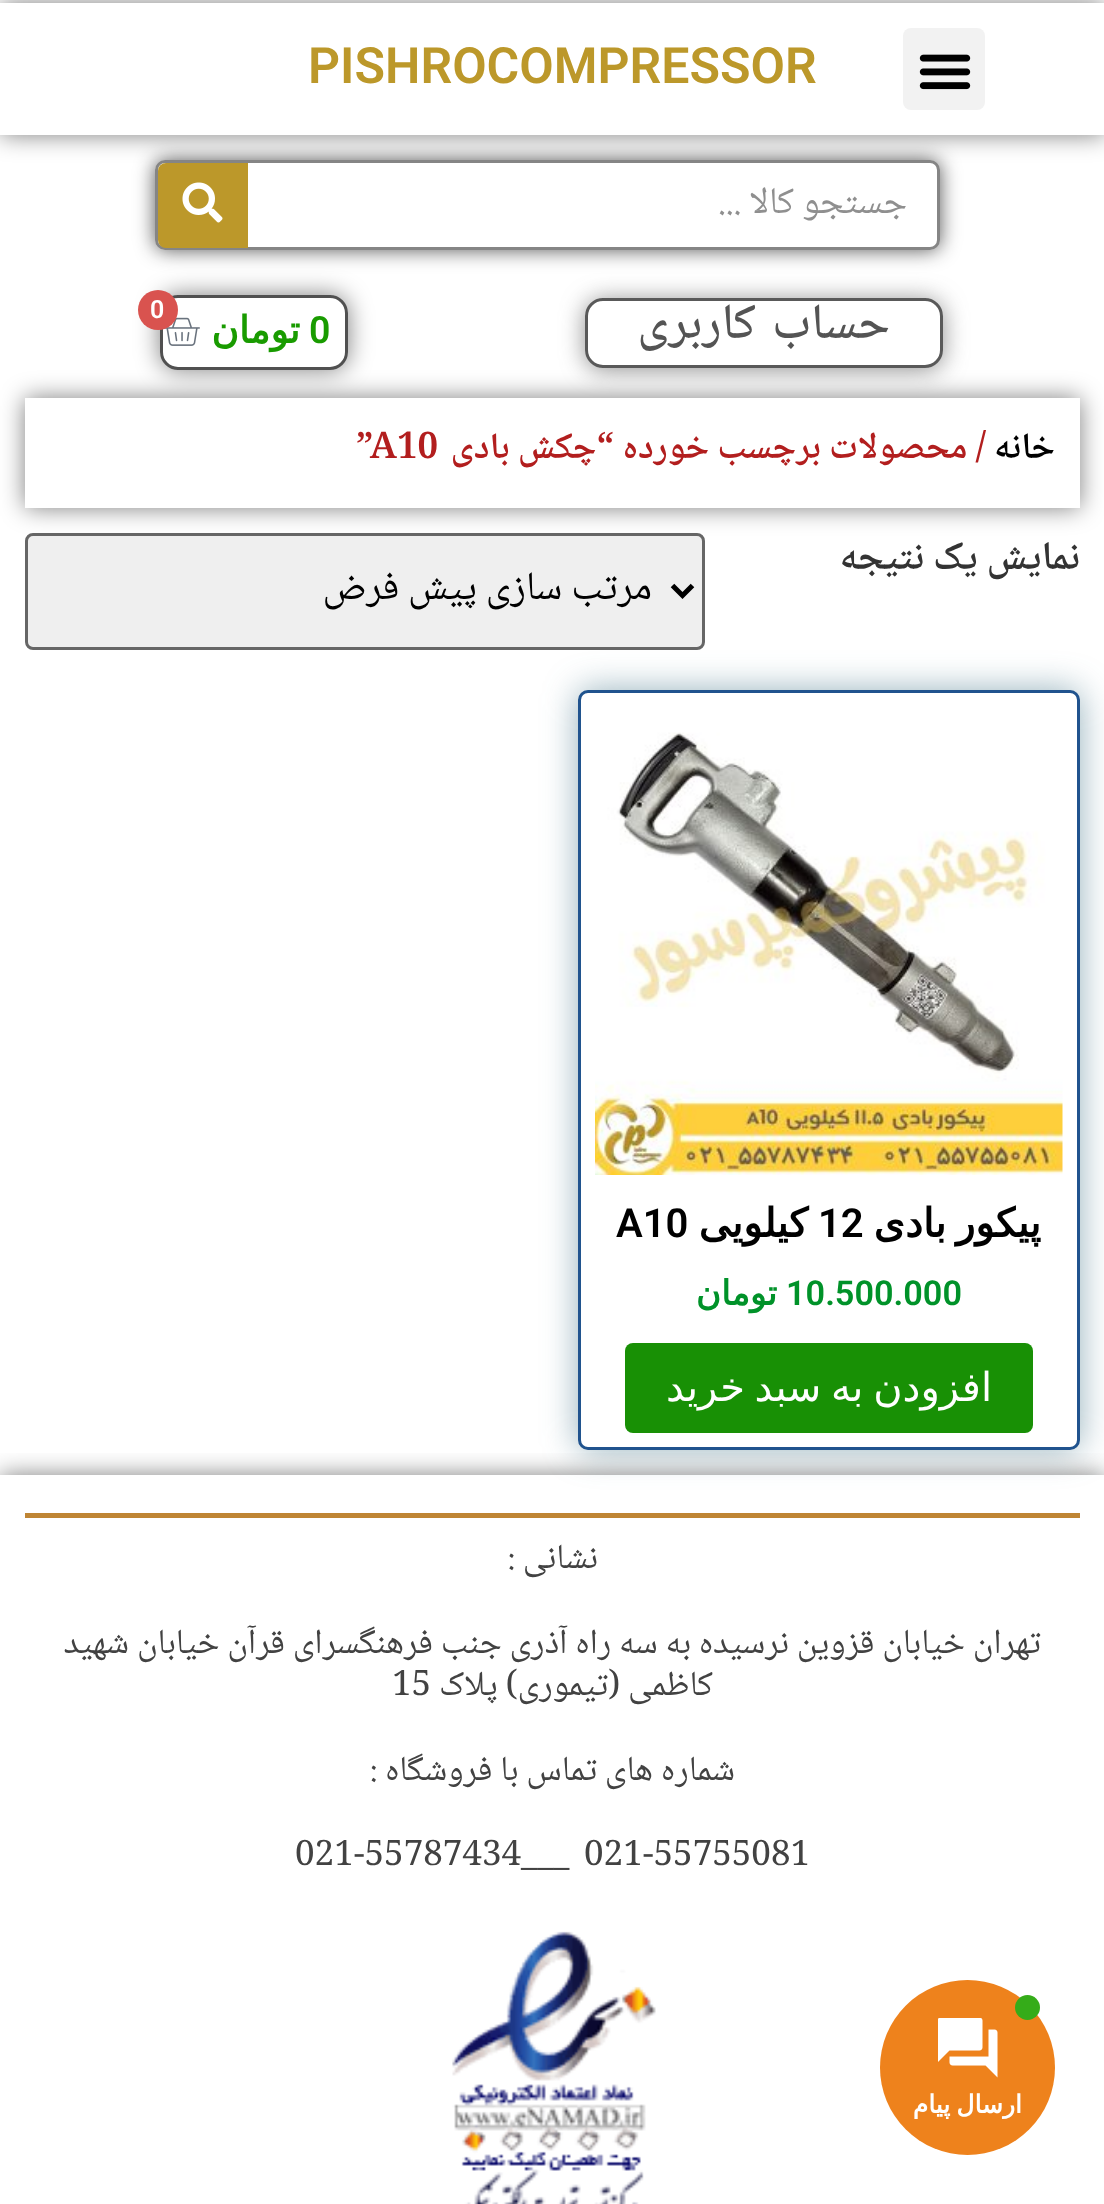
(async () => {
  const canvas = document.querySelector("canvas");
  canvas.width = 1104;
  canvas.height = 2204;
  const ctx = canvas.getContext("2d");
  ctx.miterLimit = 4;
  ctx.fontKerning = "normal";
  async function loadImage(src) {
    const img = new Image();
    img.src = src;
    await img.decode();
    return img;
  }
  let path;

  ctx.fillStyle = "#ffffff";
  ctx.fillRect(0, 0, 1104, 2204);
  ctx.save();
  path = new Path2D("M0 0H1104V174H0ZM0 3H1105V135H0Z");
  ctx.clip(path, "evenodd");
  ctx.fillStyle = "rgba(0, 0, 0, 0.5)";
  ctx.filter = "blur(12.5px)";
  ctx.beginPath();
  ctx.rect(0, 3, 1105, 132);
  ctx.fill();
  ctx.filter = "none";
  ctx.restore();
  ctx.fillStyle = "#f2f2f2";
  ctx.beginPath();
  ctx.roundRect(903, 28, 82, 82, 8);
  ctx.fill();
  ctx.drawImage(await loadImage("img/1.png"), 919, 54, 52, 36);
  ctx.fillStyle = "rgba(20, 20, 20, 0.72)";
  ctx.filter = "blur(10px)";
  ctx.beginPath();
  ctx.roundRect(155, 160, 785, 90, 10);
  ctx.fill();
  ctx.filter = "none";
  ctx.fillStyle = "#ffffff";
  ctx.beginPath();
  ctx.roundRect(155, 160, 785, 90, 10);
  ctx.fill();
  ctx.beginPath();
  ctx.roundRect(156.5, 161.5, 782, 87, 8.5);
  ctx.strokeStyle = "rgba(0, 0, 0, 0.48)";
  ctx.lineWidth = 3;
  ctx.stroke();
  ctx.fillStyle = "#bc982a";
  ctx.beginPath();
  ctx.roundRect(158, 163, 90, 85, [8, 0, 0, 8]);
  ctx.fill();
  ctx.drawImage(await loadImage("img/2.png"), 182, 182, 41, 41);
  ctx.save();
  path = new Path2D("M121 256H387V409H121ZM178 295H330C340 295 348 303 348 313V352C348 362 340 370 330 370H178C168 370 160 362 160 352V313C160 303 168 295 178 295Z");
  ctx.clip(path, "evenodd");
  ctx.fillStyle = "rgba(0, 0, 0, 0.5)";
  ctx.filter = "blur(12.5px)";
  ctx.beginPath();
  ctx.roundRect(160, 295, 188, 75, 18);
  ctx.fill();
  ctx.filter = "none";
  ctx.restore();
  ctx.beginPath();
  ctx.roundRect(161.5, 296.5, 185, 72, 16.5);
  ctx.strokeStyle = "#505050";
  ctx.stroke();
  ctx.fillStyle = "rgba(0, 0, 0, 0.5)";
  ctx.filter = "blur(12.5px)";
  ctx.beginPath();
  ctx.rect(25, 398, 1055, 110);
  ctx.fill();
  ctx.filter = "none";
  ctx.fillStyle = "#ffffff";
  ctx.fillRect(25, 398, 1055, 110);
  ctx.save();
  path = new Path2D("M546 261H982V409H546ZM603 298H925C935 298 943 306 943 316V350C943 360 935 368 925 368H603C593 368 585 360 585 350V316C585 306 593 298 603 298Z");
  ctx.clip(path, "evenodd");
  ctx.fillStyle = "rgba(83, 83, 83, 0.66)";
  ctx.filter = "blur(12.5px)";
  ctx.beginPath();
  ctx.roundRect(585, 300, 358, 70, 18);
  ctx.fill();
  ctx.filter = "none";
  ctx.restore();
  ctx.fillStyle = "rgba(255, 255, 255, 0.76)";
  ctx.beginPath();
  ctx.roundRect(586.5, 299.5, 355, 67, 16.5);
  ctx.fill();
  ctx.strokeStyle = "#595959";
  ctx.stroke();
  ctx.drawImage(await loadImage("img/3.png"), 164, 317, 36, 29);
  ctx.fillStyle = "#d9534f";
  ctx.beginPath();
  ctx.arc(158, 310, 20, 0, Math.PI * 2);
  ctx.fill();
  ctx.fillStyle = "#efefef";
  ctx.beginPath();
  ctx.roundRect(26.5, 534.5, 677, 114, 6.5);
  ctx.fill();
  ctx.strokeStyle = "#666666";
  ctx.stroke();
  path = new Path2D("M672.5 585.5L682.5 595.5L692.5 585.5");
  ctx.strokeStyle = "#000000";
  ctx.lineWidth = 5;
  ctx.stroke(path);
  ctx.fillStyle = "rgba(41, 98, 120, 0.5)";
  ctx.filter = "blur(17.5px)";
  ctx.beginPath();
  ctx.roundRect(578, 690, 502, 760, 10);
  ctx.fill();
  ctx.filter = "none";
  ctx.fillStyle = "#ffffff";
  ctx.beginPath();
  ctx.roundRect(579.5, 691.5, 499, 757, 8.5);
  ctx.fill();
  ctx.strokeStyle = "#20538e";
  ctx.lineWidth = 3;
  ctx.stroke();
  ctx.drawImage(await loadImage("img/4.png"), 595, 732, 468, 443);
  ctx.fillStyle = "#189005";
  ctx.beginPath();
  ctx.roundRect(625, 1343, 408, 90, 8);
  ctx.fill();
  ctx.save();
  ctx.beginPath();
  ctx.rect(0, 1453, 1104, 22);
  ctx.clip();
  ctx.fillStyle = "rgba(0, 0, 0, 0.5)";
  ctx.filter = "blur(12.5px)";
  ctx.beginPath();
  ctx.rect(0, 1475, 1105, 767);
  ctx.fill();
  ctx.filter = "none";
  ctx.restore();
  ctx.fillStyle = "#bf8534";
  ctx.fillRect(25, 1513, 1055, 5);
  ctx.drawImage(await loadImage("img/5.png"), 452, 1931, 204, 273);
  ctx.fillStyle = "#ee821c";
  ctx.beginPath();
  ctx.arc(967.5, 2067.5, 87.5, 0, Math.PI * 2);
  ctx.fill();
  ctx.fillStyle = "#35ac19";
  ctx.beginPath();
  ctx.arc(1027.5, 2007.5, 12.5, 0, Math.PI * 2);
  ctx.fill();
  ctx.drawImage(await loadImage("img/6.png"), 938, 2018, 60, 60);
  ctx.font = "600 50px Roboto";
  ctx.fillStyle = "#bc982a";
  ctx.fillText("PISHROCOMPRESSOR", 308, 83);
  ctx.direction = "rtl";
  ctx.font = "37.5px Noto Naskh Arabic";
  ctx.fillStyle = "#8f8f8f";
  ctx.fillText("جستجو کالا ...", 907, 213);
  ctx.wordSpacing = "5px";
  ctx.font = "500 50px Noto Naskh Arabic";
  ctx.fillStyle = "#545454";
  ctx.fillText("حساب کاربری", 890, 338);
  ctx.wordSpacing = "0px";
  ctx.direction = "ltr";
  ctx.font = "600 25px Roboto";
  ctx.fillStyle = "#ffffff";
  ctx.fillText("0", 150, 318);
  ctx.font = "600 37.5px Roboto";
  ctx.fillStyle = "#199b00";
  ctx.fillText("0", 309, 343);
  ctx.direction = "rtl";
  ctx.font = "bold 37.5px DejaVu Sans";
  ctx.fillText("تومان", 300, 343);
  ctx.font = "600 36.75px Noto Naskh Arabic";
  ctx.fillStyle = "#000000";
  ctx.fillText("خانه", 1055, 458);
  ctx.fillStyle = "#b21e1e";
  ctx.fillText("/ محصولات برچسب خورده", 986, 458);
  ctx.fillText("“چکش بادی", 614, 458);
  ctx.direction = "ltr";
  ctx.fillText("”A10", 356, 458);
  ctx.direction = "rtl";
  ctx.font = "600 40px Noto Naskh Arabic";
  ctx.fillStyle = "#333333";
  ctx.fillText("نمایش یک نتیجه", 1080, 569);
  ctx.font = "40px Noto Naskh Arabic";
  ctx.fillStyle = "#000000";
  ctx.fillText("مرتب سازی پیش فرض", 652, 599);
  ctx.wordSpacing = "-3px";
  ctx.font = "bold 40px DejaVu Sans";
  ctx.fillText("پیکور بادی", 1041, 1237);
  ctx.wordSpacing = "0px";
  ctx.direction = "ltr";
  ctx.font = "600 40px Roboto";
  ctx.fillText("12", 818, 1237);
  ctx.direction = "rtl";
  ctx.font = "bold 40px DejaVu Sans";
  ctx.fillText("کیلویی", 808, 1237);
  ctx.direction = "ltr";
  ctx.font = "600 40px Roboto";
  ctx.fillText("A10", 616, 1237);
  ctx.font = "600 34.25px Roboto";
  ctx.fillStyle = "#009229";
  ctx.fillText("10.500.000", 786, 1305);
  ctx.direction = "rtl";
  ctx.font = "bold 34.25px DejaVu Sans";
  ctx.fillText("تومان", 777, 1305);
  ctx.wordSpacing = "-3px";
  ctx.font = "40px DejaVu Sans";
  ctx.fillStyle = "#ffffff";
  ctx.fillText("افزودن به سبد خرید", 992, 1401);
  ctx.wordSpacing = "0px";
  ctx.font = "35px Noto Naskh Arabic";
  ctx.fillStyle = "#424242";
  for (const [text, x, y] of [
    ["نشانی :", 598, 1568],
    ["تهران خیابان قزوین نرسیده به سه راه آذری جنب فرهنگسرای قرآن خیابان شهید", 1041, 1653],
    ["کاظمی (تیموری) پلاک", 713, 1695],
  ]) {
    ctx.fillText(text, x, y);
  }
  ctx.direction = "ltr";
  ctx.fillText("15", 392, 1695);
  ctx.direction = "rtl";
  ctx.fillText("شماره های تماس با فروشگاه :", 735, 1780);
  ctx.direction = "ltr";
  ctx.fillText("021-55755081", 584, 1865);
  ctx.fillText("021-55787434___", 295, 1865);
  ctx.wordSpacing = "-2px";
  ctx.direction = "rtl";
  ctx.font = "bold 25px DejaVu Sans";
  ctx.fillStyle = "#ffffff";
  ctx.fillText("ارسال پیام", 1022, 2113);
})();
